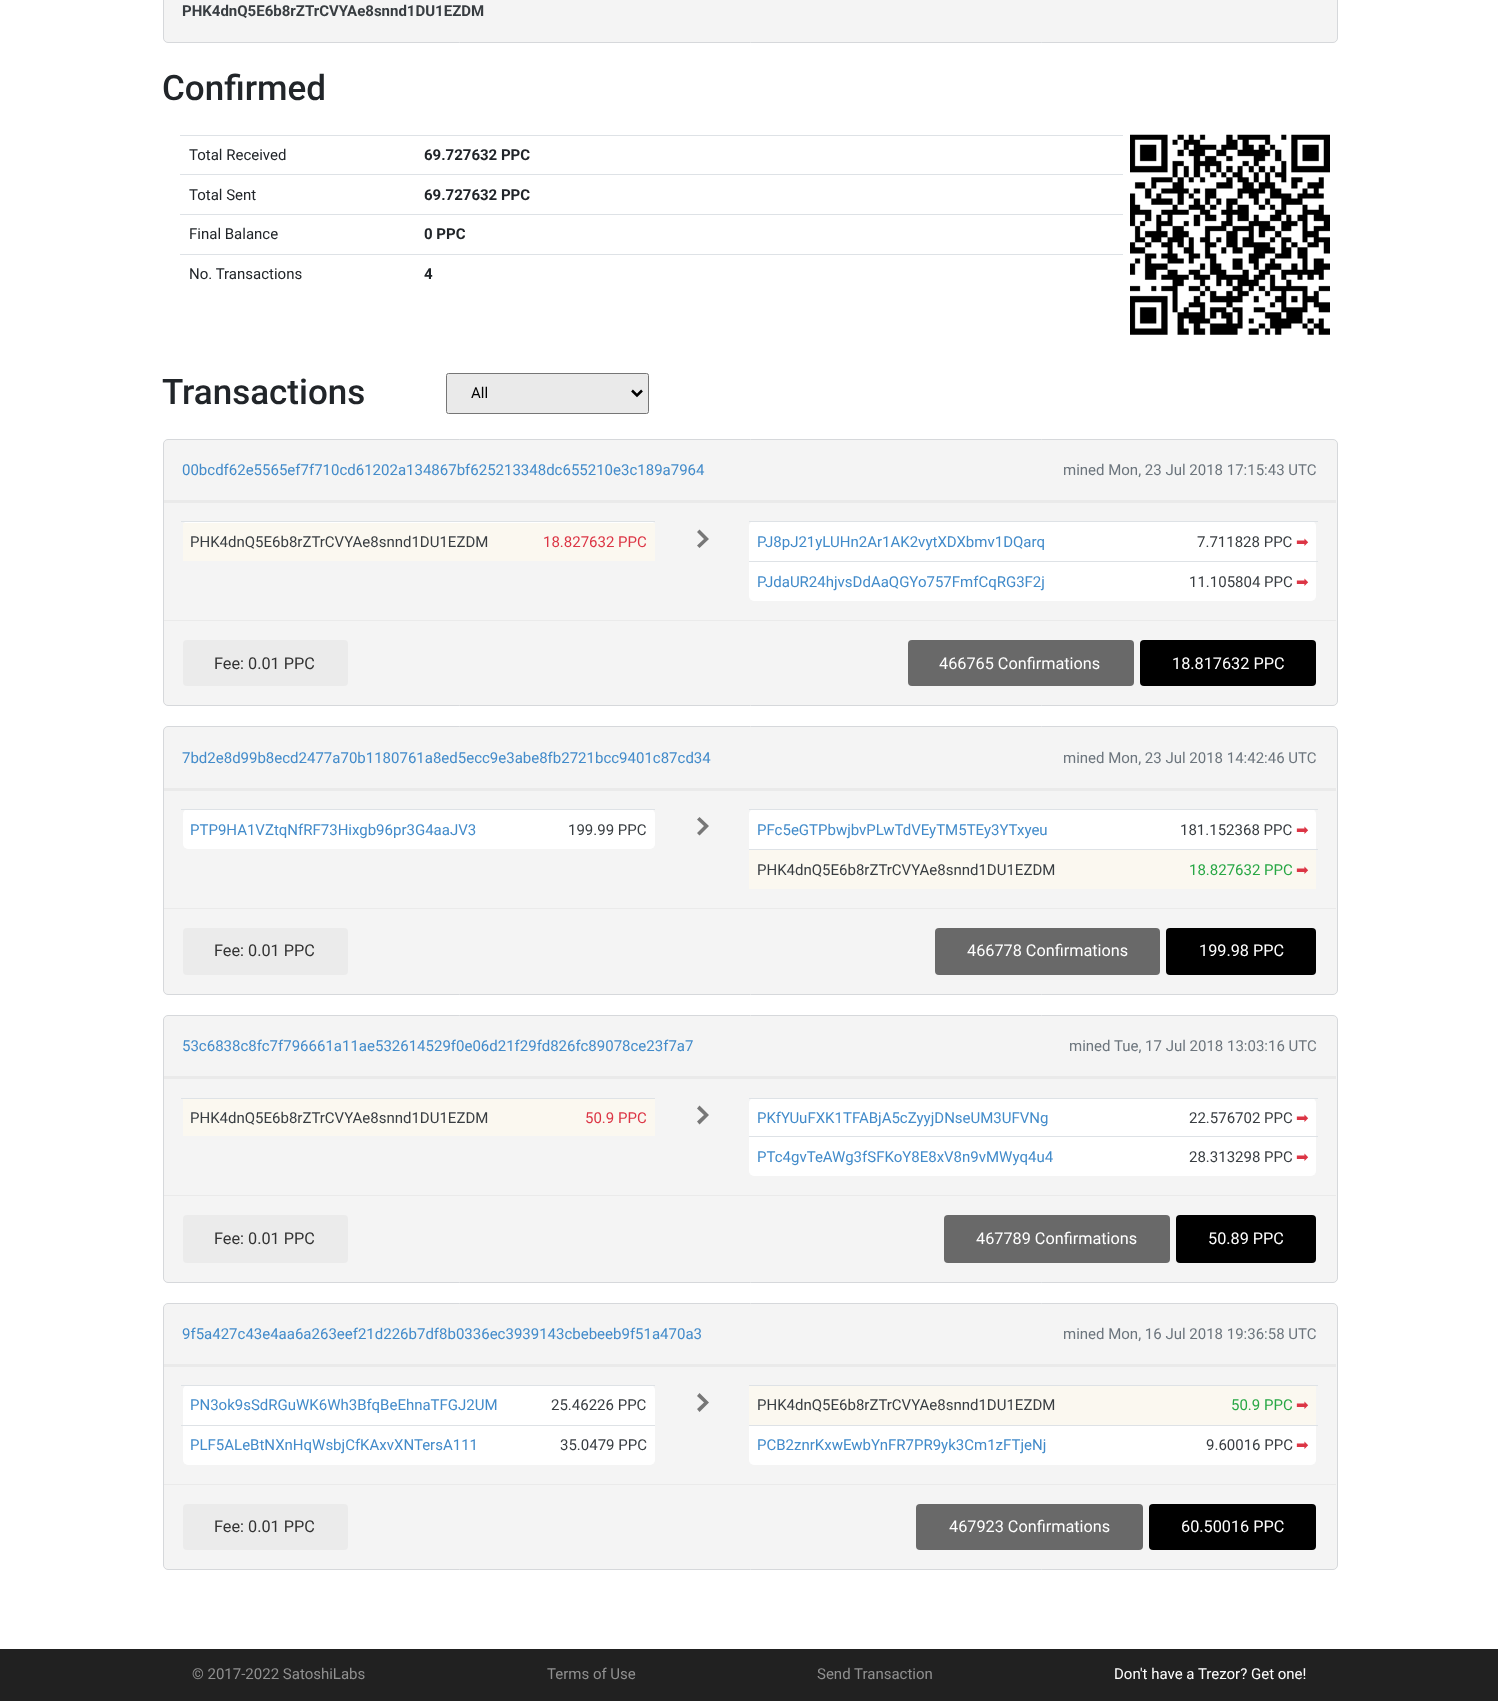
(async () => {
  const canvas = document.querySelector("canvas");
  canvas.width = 1498;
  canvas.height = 1701;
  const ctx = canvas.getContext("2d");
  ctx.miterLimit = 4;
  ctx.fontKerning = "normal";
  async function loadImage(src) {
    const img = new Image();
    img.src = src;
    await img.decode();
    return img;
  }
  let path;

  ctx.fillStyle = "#ffffff";
  ctx.fillRect(0, 0, 1498, 1701);
  ctx.fillStyle = "#f4f4f4";
  ctx.beginPath();
  ctx.roundRect(163.5, -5.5, 1174, 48, 4.5);
  ctx.fill();
  ctx.strokeStyle = "#d6d8db";
  ctx.stroke();
  for (const [x, y, w, h, color] of [
    [180, 135, 943, 1, "#dee2e6"],
    [180, 174, 943, 1, "#dee2e6"],
    [180, 214, 943, 1, "#dee2e6"],
    [180, 254, 943, 1, "#dee2e6"],
  ]) {
    ctx.fillStyle = color;
    ctx.fillRect(x, y, w, h);
  }
  ctx.drawImage(await loadImage("img/1.png"), 1130, 134, 200, 201);
  ctx.fillStyle = "#eaeaea";
  ctx.beginPath();
  ctx.roundRect(446.5, 373.5, 202, 40, 2);
  ctx.fill();
  ctx.strokeStyle = "#767676";
  ctx.stroke();
  path = new Path2D("M632 390.5L637 395.5L642 390.5");
  ctx.strokeStyle = "#000000";
  ctx.lineWidth = 2.5;
  ctx.stroke(path);
  ctx.fillStyle = "#f4f4f4";
  ctx.beginPath();
  ctx.roundRect(163.5, 439.5, 1174, 266, 4.5);
  ctx.fill();
  ctx.strokeStyle = "#d6d8db";
  ctx.lineWidth = 1;
  ctx.stroke();
  ctx.fillStyle = "#eaeaea";
  ctx.fillRect(164, 500, 1172, 3);
  ctx.fillStyle = "#ffffff";
  ctx.beginPath();
  ctx.roundRect(183, 521, 472, 40, 5);
  ctx.fill();
  ctx.fillStyle = "#fbf8f0";
  ctx.fillRect(183, 523, 472, 38);
  ctx.fillStyle = "#dee2e6";
  ctx.fillRect(181, 521, 474, 1);
  ctx.fillStyle = "#777777";
  path = new Path2D("M709 539L699.5 548L697 545.5L704 539L697 532L699.5 529.5Z");
  ctx.fill(path, "evenodd");
  ctx.fillStyle = "#ffffff";
  ctx.beginPath();
  ctx.roundRect(749, 521, 567, 80, 5);
  ctx.fill();
  for (const [x, y, w, h, color] of [
    [749, 521, 569, 1, "#dee2e6"],
    [749, 561, 569, 1, "#dee2e6"],
    [164, 620, 1172, 1, "#eaeaea"],
  ]) {
    ctx.fillStyle = color;
    ctx.fillRect(x, y, w, h);
  }
  ctx.fillStyle = "#ebebeb";
  ctx.beginPath();
  ctx.roundRect(183, 640, 165, 46, 4);
  ctx.fill();
  ctx.fillStyle = "#696969";
  ctx.beginPath();
  ctx.roundRect(908, 640, 226, 46, 4);
  ctx.fill();
  ctx.fillStyle = "#000000";
  ctx.beginPath();
  ctx.roundRect(1140, 640, 176, 46, 4);
  ctx.fill();
  ctx.fillStyle = "#f4f4f4";
  ctx.beginPath();
  ctx.roundRect(163.5, 726.5, 1174, 268, 4.5);
  ctx.fill();
  ctx.stroke();
  ctx.fillStyle = "#eaeaea";
  ctx.fillRect(164, 788, 1172, 3);
  ctx.fillStyle = "#ffffff";
  ctx.beginPath();
  ctx.roundRect(183, 809, 472, 40, 5);
  ctx.fill();
  ctx.fillStyle = "#dee2e6";
  ctx.fillRect(181, 809, 474, 1);
  ctx.fillStyle = "#777777";
  path = new Path2D("M709 826L699.5 835.5L697 833L704 826L697 819.5L699.5 817Z");
  ctx.fill(path, "evenodd");
  ctx.fillStyle = "#ffffff";
  ctx.beginPath();
  ctx.roundRect(749, 809, 567, 80, 5);
  ctx.fill();
  for (const [x, y, w, h, color] of [
    [749, 809, 569, 1, "#dee2e6"],
    [749, 850, 567, 39, "#fbf8f0"],
    [749, 849, 569, 1, "#dee2e6"],
    [164, 908, 1172, 1, "#eaeaea"],
  ]) {
    ctx.fillStyle = color;
    ctx.fillRect(x, y, w, h);
  }
  ctx.fillStyle = "#ebebeb";
  ctx.beginPath();
  ctx.roundRect(183, 928, 165, 47, 4);
  ctx.fill();
  ctx.fillStyle = "#696969";
  ctx.beginPath();
  ctx.roundRect(935, 928, 225, 47, 4);
  ctx.fill();
  ctx.fillStyle = "#000000";
  ctx.beginPath();
  ctx.roundRect(1166, 928, 150, 47, 4);
  ctx.fill();
  ctx.fillStyle = "#f4f4f4";
  ctx.beginPath();
  ctx.roundRect(163.5, 1015.5, 1174, 267, 4.5);
  ctx.fill();
  ctx.stroke();
  for (const [x, y, w, h, color] of [
    [164, 1076, 1172, 3, "#eaeaea"],
    [183, 1099, 472, 37, "#fbf8f0"],
    [181, 1098, 474, 1, "#dee2e6"],
  ]) {
    ctx.fillStyle = color;
    ctx.fillRect(x, y, w, h);
  }
  ctx.fillStyle = "#777777";
  path = new Path2D("M709 1115L699.5 1124.5L697 1121.5L704 1115L697 1108.5L699.5 1105.5Z");
  ctx.fill(path, "evenodd");
  ctx.fillStyle = "#ffffff";
  ctx.beginPath();
  ctx.roundRect(749, 1098, 567, 78, 5);
  ctx.fill();
  for (const [x, y, w, h, color] of [
    [749, 1098, 569, 1, "#dee2e6"],
    [749, 1136, 569, 1, "#dee2e6"],
    [164, 1195, 1172, 1, "#eaeaea"],
  ]) {
    ctx.fillStyle = color;
    ctx.fillRect(x, y, w, h);
  }
  ctx.fillStyle = "#ebebeb";
  ctx.beginPath();
  ctx.roundRect(183, 1215, 165, 48, 4);
  ctx.fill();
  ctx.fillStyle = "#696969";
  ctx.beginPath();
  ctx.roundRect(944, 1215, 226, 48, 4);
  ctx.fill();
  ctx.fillStyle = "#000000";
  ctx.beginPath();
  ctx.roundRect(1176, 1215, 140, 48, 4);
  ctx.fill();
  ctx.fillStyle = "#f4f4f4";
  ctx.beginPath();
  ctx.roundRect(163.5, 1303.5, 1174, 266, 4.5);
  ctx.fill();
  ctx.stroke();
  ctx.fillStyle = "#eaeaea";
  ctx.fillRect(164, 1364, 1172, 3);
  ctx.fillStyle = "#ffffff";
  ctx.beginPath();
  ctx.roundRect(183, 1385, 472, 80, 5);
  ctx.fill();
  ctx.fillStyle = "#dee2e6";
  ctx.fillRect(181, 1385, 474, 1);
  ctx.fillRect(181, 1425, 474, 1);
  ctx.fillStyle = "#777777";
  path = new Path2D("M709 1402.5L699.5 1412L697 1409L704 1402.5L697 1396L699.5 1393Z");
  ctx.fill(path, "evenodd");
  ctx.fillStyle = "#ffffff";
  ctx.beginPath();
  ctx.roundRect(749, 1385, 567, 80, 5);
  ctx.fill();
  for (const [x, y, w, h, color] of [
    [749, 1386, 567, 39, "#fbf8f0"],
    [749, 1385, 569, 1, "#dee2e6"],
    [749, 1425, 569, 1, "#dee2e6"],
    [164, 1484, 1172, 1, "#eaeaea"],
  ]) {
    ctx.fillStyle = color;
    ctx.fillRect(x, y, w, h);
  }
  ctx.fillStyle = "#ebebeb";
  ctx.beginPath();
  ctx.roundRect(183, 1504, 165, 46, 4);
  ctx.fill();
  ctx.fillStyle = "#696969";
  ctx.beginPath();
  ctx.roundRect(916, 1504, 227, 46, 4);
  ctx.fill();
  ctx.fillStyle = "#000000";
  ctx.beginPath();
  ctx.roundRect(1149, 1504, 167, 46, 4);
  ctx.fill();
  ctx.fillStyle = "#212121";
  ctx.fillRect(0, 1649, 1498, 52);
  ctx.font = "bold 15px Roboto";
  ctx.fillStyle = "#383d41";
  ctx.fillText("PHK4dnQ5E6b8rZTrCVYAe8snnd1DU1EZDM", 182, 16);
  ctx.font = "500 35px Roboto";
  ctx.fillStyle = "#212529";
  ctx.fillText("Confirmed", 162, 100);
  ctx.font = "15px Roboto";
  ctx.fillText("Total Received", 189, 160);
  ctx.font = "bold 15px Roboto";
  ctx.fillText("69.727632 PPC", 424, 160);
  ctx.font = "15px Roboto";
  ctx.fillText("Total Sent", 189, 200);
  ctx.font = "bold 15px Roboto";
  ctx.fillText("69.727632 PPC", 424, 200);
  ctx.font = "15px Roboto";
  ctx.fillText("Final Balance", 189, 239);
  ctx.font = "bold 15px Roboto";
  ctx.fillText("0 PPC", 424, 239);
  ctx.font = "15px Roboto";
  ctx.fillText("No. Transactions", 189, 279);
  ctx.font = "bold 15px Roboto";
  ctx.fillText("4", 424, 279);
  ctx.font = "500 35px Roboto";
  ctx.fillText("Transactions", 162, 404);
  ctx.font = "15px Roboto";
  ctx.fillStyle = "#000000";
  ctx.fillText("All", 471, 398);
  ctx.fillStyle = "#428bca";
  ctx.fillText("00bcdf62e5565ef7f710cd61202a134867bf625213348dc655210e3c189a7964", 182, 475);
  ctx.fillStyle = "#6c757d";
  ctx.fillText("mined Mon, 23 Jul 2018 17:15:43 UTC", 1063, 475);
  ctx.fillStyle = "#383d41";
  ctx.fillText("PHK4dnQ5E6b8rZTrCVYAe8snnd1DU1EZDM", 190, 547);
  ctx.fillStyle = "#dc3545";
  ctx.fillText("18.827632 PPC", 543, 547);
  ctx.fillStyle = "#428bca";
  ctx.fillText("PJ8pJ21yLUHn2Ar1AK2vytXDXbmv1DQarq", 757, 547);
  ctx.fillStyle = "#383d41";
  ctx.fillText("7.711828 PPC", 1197, 547);
  ctx.font = "15px DejaVu Sans";
  ctx.fillStyle = "#dc3545";
  ctx.fillText("➡", 1296, 547);
  ctx.font = "15px Roboto";
  ctx.fillStyle = "#428bca";
  ctx.fillText("PJdaUR24hjvsDdAaQGYo757FmfCqRG3F2j", 757, 587);
  ctx.fillStyle = "#383d41";
  ctx.fillText("11.105804 PPC", 1189, 587);
  ctx.font = "15px DejaVu Sans";
  ctx.fillStyle = "#dc3545";
  ctx.fillText("➡", 1296, 587);
  ctx.font = "16.25px Roboto";
  ctx.fillStyle = "#333333";
  ctx.fillText("Fee: 0.01 PPC", 214, 669);
  ctx.fillStyle = "#ffffff";
  ctx.fillText("466765 Confirmations", 939, 669);
  ctx.fillText("18.817632 PPC", 1172, 669);
  ctx.font = "15px Roboto";
  ctx.fillStyle = "#428bca";
  ctx.fillText("7bd2e8d99b8ecd2477a70b1180761a8ed5ecc9e3abe8fb2721bcc9401c87cd34", 182, 763);
  ctx.fillStyle = "#6c757d";
  ctx.fillText("mined Mon, 23 Jul 2018 14:42:46 UTC", 1063, 763);
  ctx.fillStyle = "#428bca";
  ctx.fillText("PTP9HA1VZtqNfRF73Hixgb96pr3G4aaJV3", 190, 835);
  ctx.fillStyle = "#383d41";
  ctx.fillText("199.99 PPC", 568, 835);
  ctx.fillStyle = "#428bca";
  ctx.fillText("PFc5eGTPbwjbvPLwTdVEyTM5TEy3YTxyeu", 757, 835);
  ctx.fillStyle = "#383d41";
  ctx.fillText("181.152368 PPC", 1180, 835);
  ctx.font = "15px DejaVu Sans";
  ctx.fillStyle = "#dc3545";
  ctx.fillText("➡", 1296, 835);
  ctx.font = "15px Roboto";
  ctx.fillStyle = "#383d41";
  ctx.fillText("PHK4dnQ5E6b8rZTrCVYAe8snnd1DU1EZDM", 757, 875);
  ctx.fillStyle = "#28a745";
  ctx.fillText("18.827632 PPC", 1189, 875);
  ctx.font = "15px DejaVu Sans";
  ctx.fillStyle = "#dc3545";
  ctx.fillText("➡", 1296, 875);
  ctx.font = "16.25px Roboto";
  ctx.fillStyle = "#333333";
  ctx.fillText("Fee: 0.01 PPC", 214, 956);
  ctx.fillStyle = "#ffffff";
  ctx.fillText("466778 Confirmations", 967, 956);
  ctx.fillText("199.98 PPC", 1199, 956);
  ctx.font = "15px Roboto";
  ctx.fillStyle = "#428bca";
  ctx.fillText("53c6838c8fc7f796661a11ae532614529f0e06d21f29fd826fc89078ce23f7a7", 182, 1051);
  ctx.fillStyle = "#6c757d";
  ctx.fillText("mined Tue, 17 Jul 2018 13:03:16 UTC", 1069, 1051);
  ctx.fillStyle = "#383d41";
  ctx.fillText("PHK4dnQ5E6b8rZTrCVYAe8snnd1DU1EZDM", 190, 1123);
  ctx.fillStyle = "#dc3545";
  ctx.fillText("50.9 PPC", 585, 1123);
  ctx.fillStyle = "#428bca";
  ctx.fillText("PKfYUuFXK1TFABjA5cZyyjDNseUM3UFVNg", 757, 1123);
  ctx.fillStyle = "#383d41";
  ctx.fillText("22.576702 PPC", 1189, 1123);
  ctx.font = "15px DejaVu Sans";
  ctx.fillStyle = "#dc3545";
  ctx.fillText("➡", 1296, 1123);
  ctx.font = "15px Roboto";
  ctx.fillStyle = "#428bca";
  ctx.fillText("PTc4gvTeAWg3fSFKoY8E8xV8n9vMWyq4u4", 757, 1162);
  ctx.fillStyle = "#383d41";
  ctx.fillText("28.313298 PPC", 1189, 1162);
  ctx.font = "15px DejaVu Sans";
  ctx.fillStyle = "#dc3545";
  ctx.fillText("➡", 1296, 1162);
  ctx.font = "16.25px Roboto";
  ctx.fillStyle = "#333333";
  ctx.fillText("Fee: 0.01 PPC", 214, 1244);
  ctx.fillStyle = "#ffffff";
  ctx.fillText("467789 Confirmations", 976, 1244);
  ctx.fillText("50.89 PPC", 1208, 1244);
  ctx.font = "15px Roboto";
  ctx.fillStyle = "#428bca";
  ctx.fillText("9f5a427c43e4aa6a263eef21d226b7df8b0336ec3939143cbebeeb9f51a470a3", 182, 1339);
  ctx.fillStyle = "#6c757d";
  ctx.fillText("mined Mon, 16 Jul 2018 19:36:58 UTC", 1063, 1339);
  ctx.fillStyle = "#428bca";
  ctx.fillText("PN3ok9sSdRGuWK6Wh3BfqBeEhnaTFGJ2UM", 190, 1410);
  ctx.fillStyle = "#383d41";
  ctx.fillText("25.46226 PPC", 551, 1410);
  ctx.fillStyle = "#428bca";
  ctx.fillText("PLF5ALeBtNXnHqWsbjCfKAxvXNTersA111", 190, 1450);
  ctx.fillStyle = "#383d41";
  ctx.fillText("35.0479 PPC", 560, 1450);
  ctx.fillText("PHK4dnQ5E6b8rZTrCVYAe8snnd1DU1EZDM", 757, 1410);
  ctx.fillStyle = "#28a745";
  ctx.fillText("50.9 PPC", 1231, 1410);
  ctx.font = "15px DejaVu Sans";
  ctx.fillStyle = "#dc3545";
  ctx.fillText("➡", 1296, 1410);
  ctx.font = "15px Roboto";
  ctx.fillStyle = "#428bca";
  ctx.fillText("PCB2znrKxwEwbYnFR7PR9yk3Cm1zFTjeNj", 757, 1450);
  ctx.fillStyle = "#383d41";
  ctx.fillText("9.60016 PPC", 1206, 1450);
  ctx.font = "15px DejaVu Sans";
  ctx.fillStyle = "#dc3545";
  ctx.fillText("➡", 1296, 1450);
  ctx.font = "16.25px Roboto";
  ctx.fillStyle = "#333333";
  ctx.fillText("Fee: 0.01 PPC", 214, 1532);
  ctx.fillStyle = "#ffffff";
  ctx.fillText("467923 Confirmations", 949, 1532);
  ctx.fillText("60.50016 PPC", 1181, 1532);
  ctx.font = "15px Roboto";
  ctx.fillStyle = "#909090";
  for (const [text, x, y] of [
    ["© 2017-2022 SatoshiLabs", 192, 1679],
    ["Terms of Use", 547, 1679],
    ["Send Transaction", 817, 1679],
  ]) {
    ctx.fillText(text, x, y);
  }
  ctx.fillStyle = "#ffffff";
  ctx.fillText("Don't have a Trezor? Get one!", 1114, 1679);
})();
